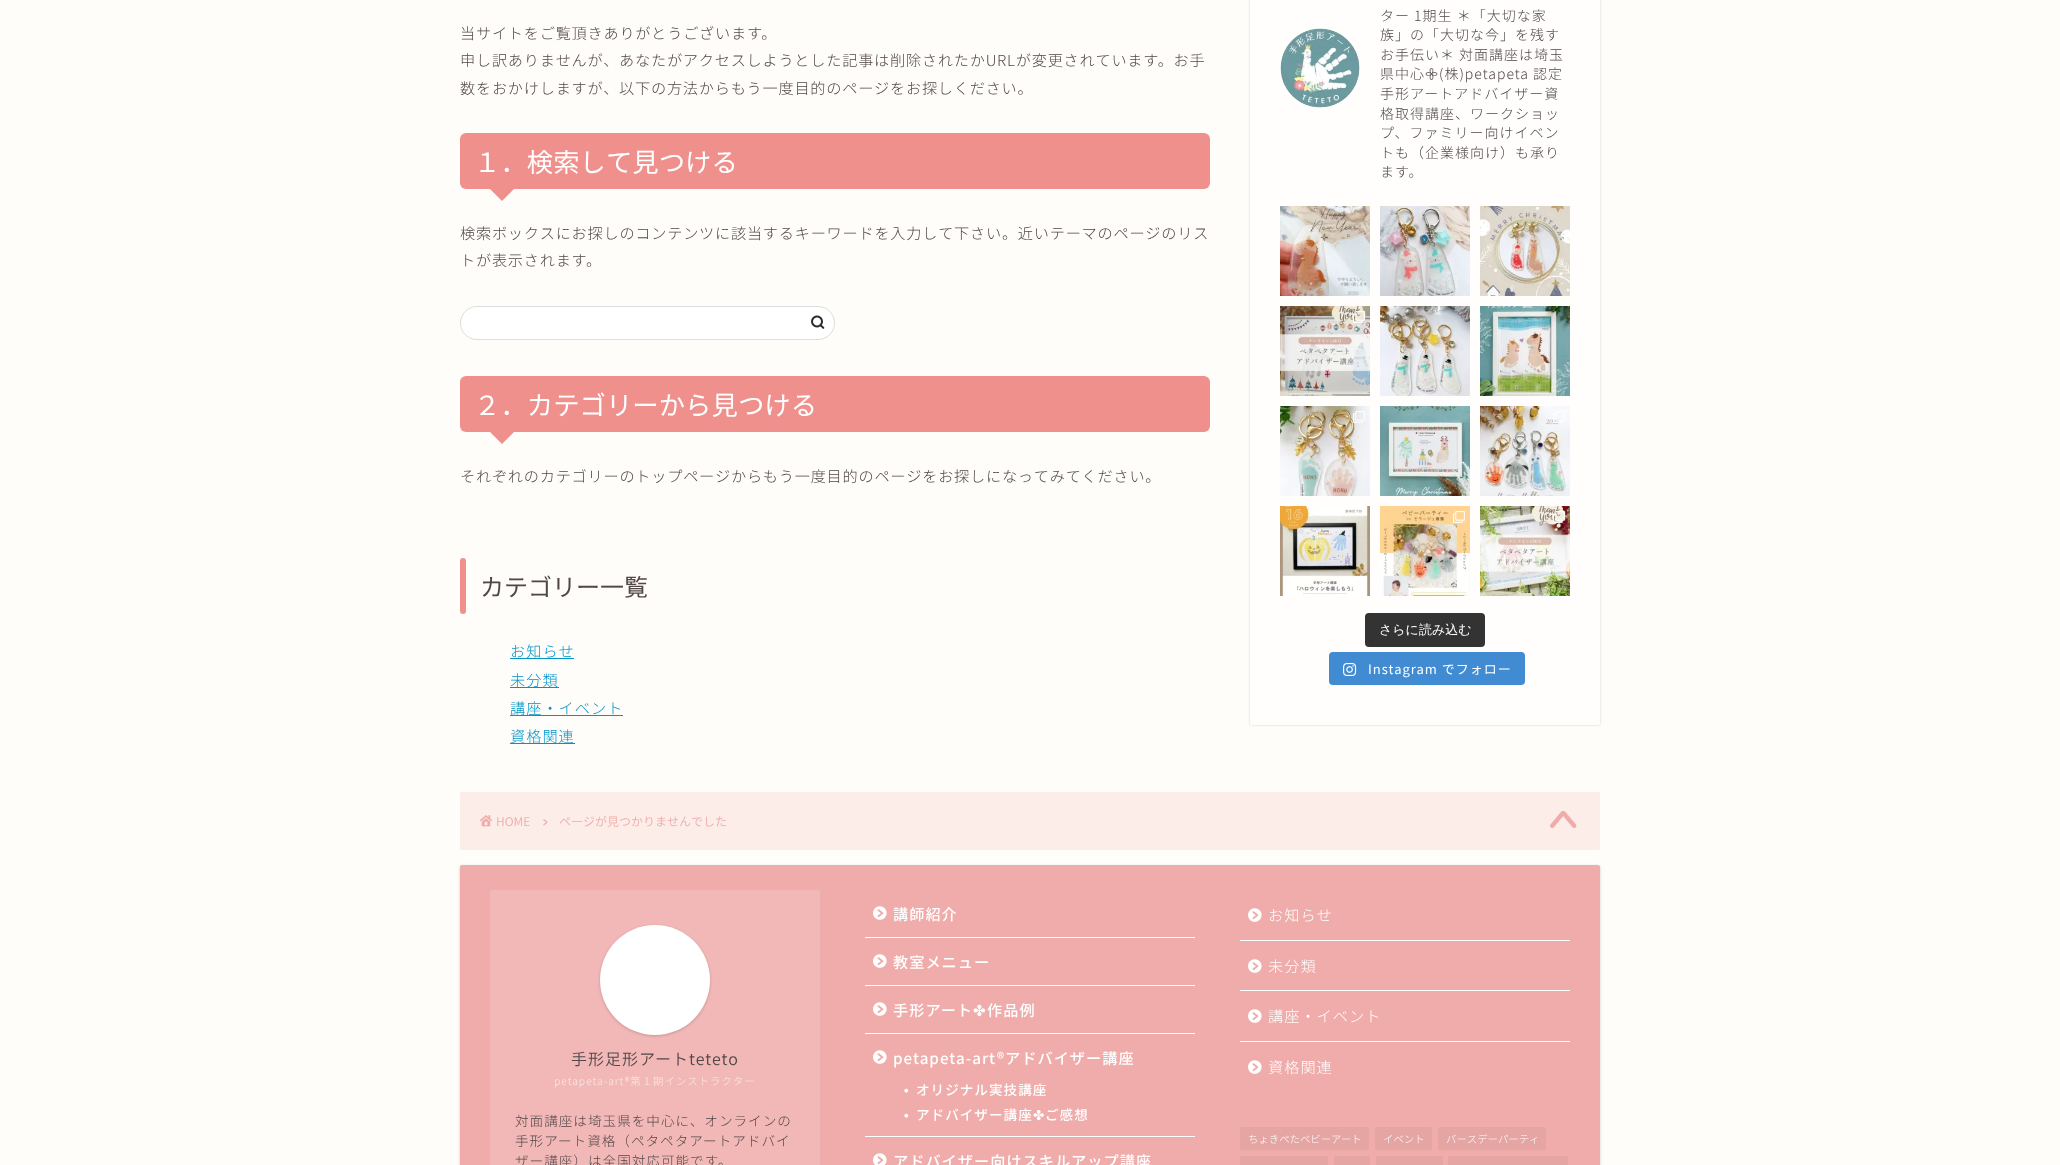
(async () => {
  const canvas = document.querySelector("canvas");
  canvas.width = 2060;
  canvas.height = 1165;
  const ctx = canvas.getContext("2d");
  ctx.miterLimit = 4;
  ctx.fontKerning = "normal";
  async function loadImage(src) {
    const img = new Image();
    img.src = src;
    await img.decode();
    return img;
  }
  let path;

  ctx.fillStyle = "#fffdf9";
  ctx.fillRect(0, 0, 2060, 1165);
  ctx.fillStyle = "#f0908d";
  ctx.beginPath();
  ctx.roundRect(460, 133, 750, 56, 6);
  ctx.fill();
  path = new Path2D("M490 189H514L502 201Z");
  ctx.fill(path);
  ctx.fillStyle = "#ffffff";
  ctx.beginPath();
  ctx.roundRect(460.5, 306.5, 374, 33, 16.5);
  ctx.fill();
  ctx.strokeStyle = "#dddddd";
  ctx.stroke();
  ctx.drawImage(await loadImage("img/1.png"), 811, 315, 14, 14);
  ctx.fillStyle = "#f0908d";
  ctx.beginPath();
  ctx.roundRect(460, 376, 750, 56, 6);
  ctx.fill();
  path = new Path2D("M490 432H514L502 444Z");
  ctx.fill(path);
  ctx.beginPath();
  ctx.roundRect(460, 558, 6, 56, 3);
  ctx.fill();
  for (const [x, y, w, h, color] of [
    [510, 658, 64, 1, "#0094c8"],
    [510, 687, 49, 1, "#0094c8"],
    [510, 715, 113, 1, "#0094c8"],
    [510, 743, 65, 1, "#0094c8"],
  ]) {
    ctx.fillStyle = color;
    ctx.fillRect(x, y, w, h);
  }
  ctx.save();
  path = new Path2D("M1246 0H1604V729H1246ZM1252-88H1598C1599-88 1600-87 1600-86V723C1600 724 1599 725 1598 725H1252C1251 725 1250 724 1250 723V-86C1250-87 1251-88 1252-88Z");
  ctx.clip(path, "evenodd");
  ctx.fillStyle = "rgba(0, 0, 0, 0.18)";
  ctx.filter = "blur(1px)";
  ctx.beginPath();
  ctx.roundRect(1250, -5, 350, 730, 2);
  ctx.fill();
  ctx.filter = "none";
  ctx.restore();
  ctx.fillStyle = "rgba(255, 255, 255, 0.6)";
  ctx.beginPath();
  ctx.roundRect(1250, -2, 350, 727, 2);
  ctx.fill();
  ctx.drawImage(await loadImage("img/2.png"), 1280, 28, 80, 80);
  ctx.drawImage(await loadImage("img/3.png"), 1280, 206, 90, 90);
  ctx.drawImage(await loadImage("img/4.png"), 1380, 206, 90, 90);
  ctx.drawImage(await loadImage("img/5.png"), 1480, 206, 90, 90);
  ctx.drawImage(await loadImage("img/6.png"), 1280, 306, 90, 90);
  ctx.drawImage(await loadImage("img/7.png"), 1353, 311, 12, 12);
  ctx.drawImage(await loadImage("img/8.png"), 1380, 306, 90, 90);
  ctx.drawImage(await loadImage("img/9.png"), 1480, 306, 90, 90);
  ctx.drawImage(await loadImage("img/10.png"), 1280, 406, 90, 90);
  ctx.drawImage(await loadImage("img/11.png"), 1353, 411, 12, 12);
  ctx.drawImage(await loadImage("img/12.png"), 1380, 406, 90, 90);
  ctx.drawImage(await loadImage("img/13.png"), 1480, 406, 90, 90);
  ctx.drawImage(await loadImage("img/14.png"), 1553, 411, 12, 12);
  ctx.drawImage(await loadImage("img/15.png"), 1280, 506, 90, 90);
  ctx.drawImage(await loadImage("img/16.png"), 1380, 506, 90, 90);
  ctx.drawImage(await loadImage("img/17.png"), 1453, 511, 12, 12);
  ctx.drawImage(await loadImage("img/18.png"), 1480, 506, 90, 90);
  ctx.drawImage(await loadImage("img/19.png"), 1553, 511, 12, 12);
  ctx.fillStyle = "#333333";
  ctx.beginPath();
  ctx.roundRect(1365, 613, 120, 34, 4);
  ctx.fill();
  ctx.fillStyle = "#408bd1";
  ctx.beginPath();
  ctx.roundRect(1329, 652, 196, 33, 4);
  ctx.fill();
  ctx.drawImage(await loadImage("img/20.png"), 1343, 663, 14, 13);
  ctx.fillStyle = "#fcede9";
  ctx.beginPath();
  ctx.roundRect(460, 792, 1140, 58, 2);
  ctx.fill();
  ctx.drawImage(await loadImage("img/21.png"), 480, 815, 12, 12);
  ctx.drawImage(await loadImage("img/22.png"), 543, 819, 5, 7);
  ctx.drawImage(await loadImage("img/23.png"), 1550, 810, 27, 18);
  ctx.fillStyle = "rgba(0, 0, 0, 0.18)";
  ctx.filter = "blur(1.5px)";
  ctx.beginPath();
  ctx.roundRect(460, 866, 1140, 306, 2);
  ctx.fill();
  ctx.filter = "none";
  ctx.fillStyle = "#efacaa";
  ctx.beginPath();
  ctx.roundRect(460, 865, 1140, 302, 2);
  ctx.fill();
  ctx.fillStyle = "#f2b8b7";
  ctx.beginPath();
  ctx.roundRect(490, 890, 330, 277, 2);
  ctx.fill();
  ctx.fillStyle = "rgba(0, 0, 0, 0.18)";
  ctx.filter = "blur(1.5px)";
  ctx.beginPath();
  ctx.roundRect(600, 926, 110, 110, 55);
  ctx.fill();
  ctx.filter = "none";
  ctx.fillStyle = "#ffffff";
  ctx.beginPath();
  ctx.arc(655, 980, 55, 0, Math.PI * 2);
  ctx.fill();
  ctx.fillRect(865, 937, 330, 1);
  ctx.drawImage(await loadImage("img/24.png"), 873, 906, 14, 14);
  ctx.fillRect(865, 985, 330, 1);
  ctx.drawImage(await loadImage("img/24.png"), 873, 954, 14, 14);
  ctx.fillRect(865, 1033, 330, 1);
  ctx.drawImage(await loadImage("img/24.png"), 873, 1002, 14, 14);
  ctx.fillRect(865, 1136, 330, 1);
  ctx.drawImage(await loadImage("img/24.png"), 873, 1050, 14, 14);
  ctx.drawImage(await loadImage("img/25.png"), 873, 1153, 14, 12);
  ctx.fillRect(1240, 940, 330, 1);
  ctx.drawImage(await loadImage("img/24.png"), 1248, 908, 14, 14);
  ctx.fillRect(1240, 990, 330, 1);
  ctx.drawImage(await loadImage("img/24.png"), 1248, 959, 14, 14);
  ctx.fillRect(1240, 1041, 330, 1);
  ctx.drawImage(await loadImage("img/24.png"), 1248, 1009, 14, 14);
  ctx.drawImage(await loadImage("img/24.png"), 1248, 1060, 14, 14);
  ctx.fillStyle = "#e5a5a3";
  ctx.beginPath();
  ctx.roundRect(1240, 1127, 129, 23, 2);
  ctx.fill();
  ctx.beginPath();
  ctx.roundRect(1375, 1127, 57, 23, 2);
  ctx.fill();
  ctx.beginPath();
  ctx.roundRect(1438, 1127, 108, 23, 2);
  ctx.fill();
  ctx.beginPath();
  ctx.roundRect(1240, 1156, 88, 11, 2);
  ctx.fill();
  ctx.beginPath();
  ctx.roundRect(1334, 1156, 36, 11, 2);
  ctx.fill();
  ctx.beginPath();
  ctx.roundRect(1376, 1156, 67, 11, 2);
  ctx.fill();
  ctx.beginPath();
  ctx.roundRect(1448, 1156, 120, 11, 2);
  ctx.fill();
  ctx.letterSpacing = "0.75px";
  ctx.font = "300 15.2px Noto Sans JP";
  ctx.fillStyle = "#524748";
  for (const [text, x, y] of [
    ["当サイトをご覧頂きありがとうございます。", 460, 39],
    ["申し訳ありませんが、あなたがアクセスしようとした記事は削除されたかURLが変更されています。お手", 460, 66],
    ["数をおかけしますが、以下の方法からもう一度目的のページをお探しください。", 460, 94],
  ]) {
    ctx.fillText(text, x, y);
  }
  ctx.letterSpacing = "0px";
  ctx.font = "26.4px Noto Sans JP";
  ctx.fillStyle = "#ffffff";
  ctx.fillText("１．検索して見つける", 474, 172);
  ctx.letterSpacing = "0.75px";
  ctx.font = "300 15.2px Noto Sans JP";
  ctx.fillStyle = "#524748";
  ctx.fillText("検索ボックスにお探しのコンテンツに該当するキーワードを入力して下さい。近いテーマのページのリス", 460, 239);
  ctx.fillText("トが表示されます。", 460, 266);
  ctx.letterSpacing = "0px";
  ctx.font = "26.4px Noto Sans JP";
  ctx.fillStyle = "#ffffff";
  ctx.fillText("２．カテゴリーから見つける", 474, 415);
  ctx.letterSpacing = "0.75px";
  ctx.font = "300 15.2px Noto Sans JP";
  ctx.fillStyle = "#524748";
  ctx.fillText("それぞれのカテゴリーのトップページからもう一度目的のページをお探しになってみてください。", 460, 482);
  ctx.letterSpacing = "0px";
  ctx.font = "24px Noto Sans JP";
  ctx.fillText("カテゴリー一覧", 480, 596);
  ctx.letterSpacing = "1px";
  ctx.font = "300 15.2px Noto Sans JP";
  ctx.fillStyle = "#0094c8";
  for (const [text, x, y] of [
    ["お知らせ", 510, 657],
    ["未分類", 510, 686],
    ["講座・イベント", 510, 714],
    ["資格関連", 510, 742],
  ]) {
    ctx.fillText(text, x, y);
  }
  ctx.font = "300 14px Noto Sans JP";
  ctx.fillStyle = "#524748";
  for (const [text, x, y] of [
    ["ター 1期生 ＊「大切な家", 1380, 21],
    ["族」の「大切な今」を残す", 1380, 40],
    ["お手伝い＊ 対面講座は埼玉", 1380, 60],
    ["県中心", 1380, 79],
  ]) {
    ctx.fillText(text, x, y);
  }
  ctx.font = "14px Noto Sans Bamum";
  ctx.fillText("𖧷", 1425, 79);
  ctx.font = "300 14px Noto Sans JP";
  for (const [text, x, y] of [
    ["(株)petapeta 認定", 1439, 79],
    ["手形アートアドバイザー資", 1380, 99],
    ["格取得講座、ワークショッ", 1380, 119],
    ["プ、ファミリー向けイベン", 1380, 138],
    ["トも（企業様向け）も承り", 1380, 158],
    ["ます。", 1380, 177],
  ]) {
    ctx.fillText(text, x, y);
  }
  ctx.letterSpacing = "0px";
  ctx.font = "500 13px WenQuanYi Zen Hei";
  ctx.fillStyle = "#ffffff";
  ctx.fillText("さらに読み込む", 1379, 634);
  ctx.letterSpacing = "1px";
  ctx.font = "13px Noto Sans JP";
  ctx.fillText("Instagram でフォロー", 1368, 674);
  ctx.letterSpacing = "0px";
  ctx.font = "300 12px 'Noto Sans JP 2'";
  ctx.fillStyle = "#efacaa";
  ctx.fillText("HOME", 496, 826);
  ctx.fillText("ページが見つかりませんでした", 559, 826);
  ctx.letterSpacing = "1px";
  ctx.font = "300 16px 'Noto Sans JP 2'";
  ctx.fillStyle = "#524748";
  ctx.fillText("手形足形アートteteto", 571, 1065);
  ctx.font = "300 10.4px Noto Sans JP";
  ctx.fillStyle = "#fbeae9";
  ctx.fillText("petapeta-art®第１期インストラクター", 554, 1085);
  ctx.font = "300 13.6px Noto Sans JP";
  ctx.fillStyle = "#524748";
  for (const [text, x, y] of [
    ["対面講座は埼玉県を中心に、オンラインの", 515, 1126],
    ["手形アート資格（ペタペタアートアドバイ", 515, 1146],
    ["ザー講座）は全国対応可能です。", 515, 1166],
  ]) {
    ctx.fillText(text, x, y);
  }
  ctx.font = "500 15.2px Noto Sans JP";
  ctx.fillStyle = "#ffffff";
  for (const [text, x, y] of [
    ["講師紹介", 893, 920],
    ["教室メニュー", 893, 968],
    ["手形アート", 893, 1016],
  ]) {
    ctx.fillText(text, x, y);
  }
  ctx.font = "15.2px DejaVu Sans";
  ctx.fillText("✤", 973, 1016);
  ctx.font = "500 15.2px Noto Sans JP";
  ctx.fillText("作品例", 987, 1016);
  ctx.fillText("petapeta-art®アドバイザー講座", 893, 1064);
  ctx.font = "500 24px WenQuanYi Zen Hei";
  ctx.fillText("・", 894, 1099);
  ctx.font = "500 13.6px Noto Sans JP";
  ctx.fillText("オリジナル実技講座", 916, 1095);
  ctx.font = "500 24px WenQuanYi Zen Hei";
  ctx.fillText("・", 894, 1124);
  ctx.font = "500 13.6px Noto Sans JP";
  ctx.fillText("アドバイザー講座", 916, 1120);
  ctx.font = "13.6px DejaVu Sans";
  ctx.fillText("✤", 1033, 1120);
  ctx.font = "500 13.6px Noto Sans JP";
  ctx.fillText("ご感想", 1045, 1120);
  ctx.font = "500 15.2px Noto Sans JP";
  ctx.fillText("アドバイザー向けスキルアップ講座", 893, 1167);
  ctx.font = "300 15.2px Noto Sans JP";
  for (const [text, x, y] of [
    ["お知らせ", 1268, 921],
    ["未分類", 1268, 972],
    ["講座・イベント", 1268, 1022],
    ["資格関連", 1268, 1073],
  ]) {
    ctx.fillText(text, x, y);
  }
  ctx.letterSpacing = "0px";
  ctx.font = "300 10.4px Noto Sans JP";
  for (const [text, x, y] of [
    ["ちょきぺたベビーアート", 1248, 1143],
    ["イベント", 1383, 1143],
    ["バースデーパーティ", 1446, 1143],
  ]) {
    ctx.fillText(text, x, y);
  }
})();
